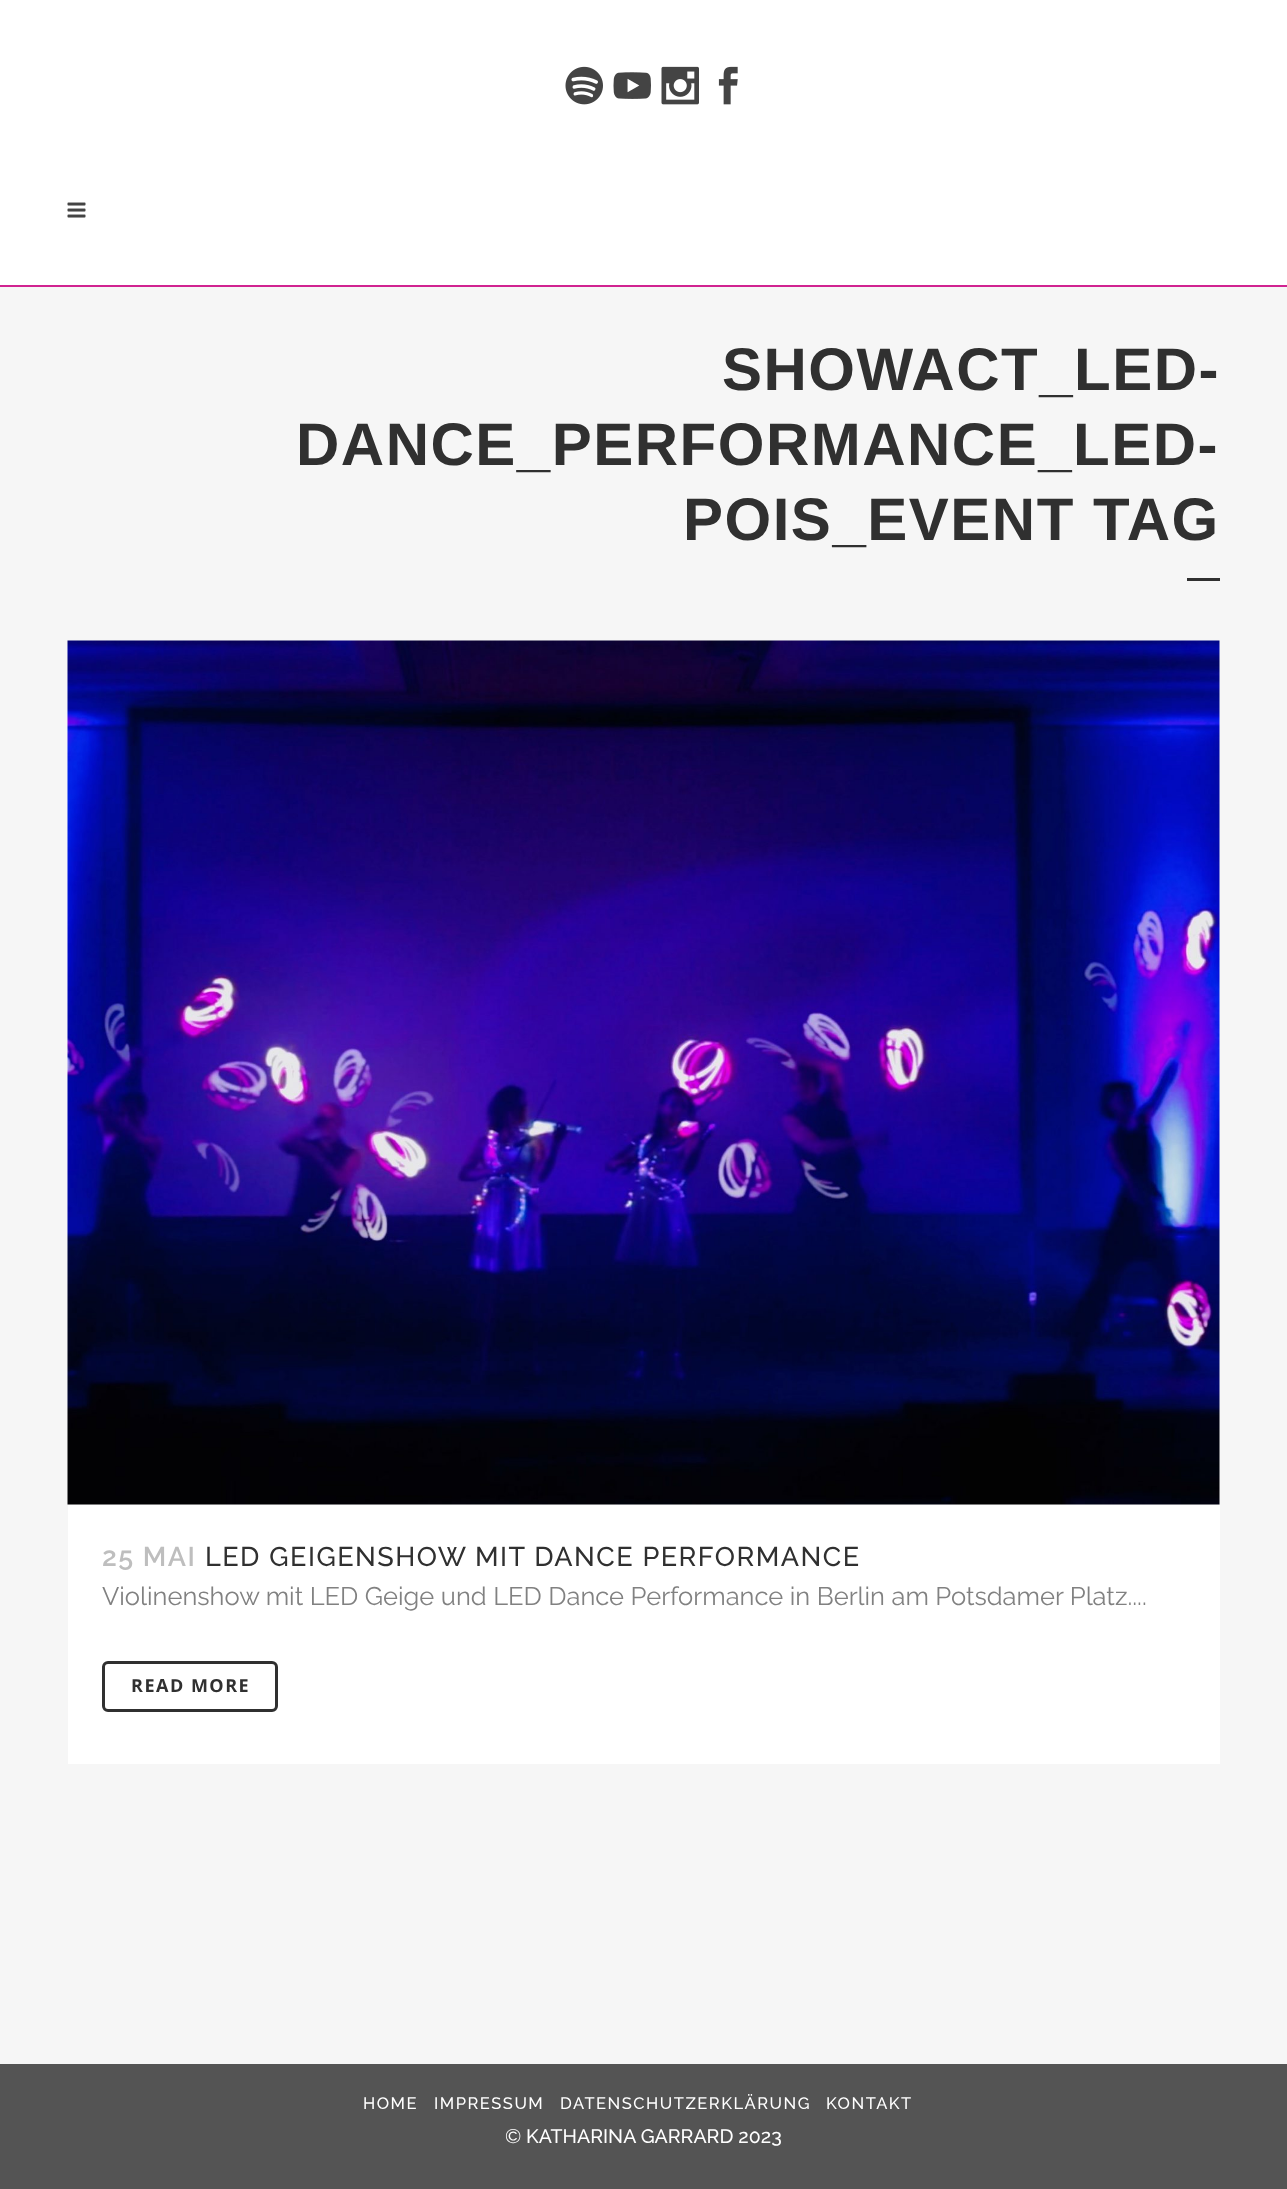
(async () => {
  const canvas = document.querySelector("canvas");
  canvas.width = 1287;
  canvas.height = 2189;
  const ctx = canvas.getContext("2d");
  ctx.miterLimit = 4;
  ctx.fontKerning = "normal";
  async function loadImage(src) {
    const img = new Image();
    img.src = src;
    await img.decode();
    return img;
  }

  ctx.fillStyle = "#f6f6f6";
  ctx.fillRect(0, 0, 1287, 2189);
  ctx.fillStyle = "#ffffff";
  ctx.fillRect(0, 0, 1287, 285);
  ctx.fillStyle = "#d12391";
  ctx.fillRect(0, 285, 1287, 2);
  ctx.drawImage(await loadImage("img/1.png"), 67, 202, 19, 16);
  ctx.drawImage(await loadImage("img/2.png"), 565, 66, 38, 39);
  ctx.drawImage(await loadImage("img/3.png"), 613, 72, 38, 27);
  ctx.drawImage(await loadImage("img/4.png"), 661, 66, 38, 39);
  ctx.drawImage(await loadImage("img/5.png"), 718, 66, 20, 39);
  ctx.fillStyle = "#303030";
  ctx.fillRect(1187, 578, 33, 3);
  ctx.drawImage(await loadImage("img/6.png"), 67, 640, 1153, 865);
  ctx.fillStyle = "#ffffff";
  ctx.fillRect(68, 1505, 1152, 259);
  ctx.beginPath();
  ctx.roundRect(103.5, 1662.5, 173, 48, 4.5);
  ctx.strokeStyle = "#303030";
  ctx.lineWidth = 3;
  ctx.stroke();
  ctx.fillStyle = "#545454";
  ctx.fillRect(0, 2064, 1287, 125);
  ctx.letterSpacing = "1.5px";
  ctx.font = "bold 60px Liberation Sans";
  ctx.fillStyle = "#303030";
  for (const [text, x, y] of [
    ["SHOWACT_LED-", 722, 390],
    ["DANCE_PERFORMANCE_LED-", 296, 465],
    ["POIS_EVENT TAG", 683, 540],
  ]) {
    ctx.fillText(text, x, y);
  }
  ctx.font = "600 27px Raleway";
  ctx.fillStyle = "#bebebe";
  ctx.fillText("25 MAI", 102, 1566);
  ctx.font = "500 27px Raleway";
  ctx.fillStyle = "#303030";
  ctx.fillText("LED GEIGENSHOW MIT DANCE PERFORMANCE", 205, 1566);
  ctx.letterSpacing = "0px";
  ctx.font = "25.5px Raleway";
  ctx.fillStyle = "#818181";
  ctx.fillText("Violinenshow mit LED Geige und LED Dance Performance in Berlin am Potsdamer Platz....", 102, 1605);
  ctx.letterSpacing = "1.5px";
  ctx.font = "bold 18px Open Sans";
  ctx.fillStyle = "#303030";
  ctx.fillText("READ MORE", 131, 1692);
  ctx.font = "500 16.5px Raleway";
  ctx.fillStyle = "#ffffff";
  for (const [text, x, y] of [
    ["HOME", 363, 2109],
    ["IMPRESSUM", 434, 2109],
    ["DATENSCHUTZERKLÄRUNG", 560, 2109],
    ["KONTAKT", 826, 2109],
  ]) {
    ctx.fillText(text, x, y);
  }
  ctx.letterSpacing = "0px";
  ctx.font = "19.5px Raleway";
  ctx.fillText("©", 505, 2143);
  ctx.font = "500 19.5px Raleway";
  ctx.fillText("KATHARINA GARRARD 2023", 526, 2143);
})();
